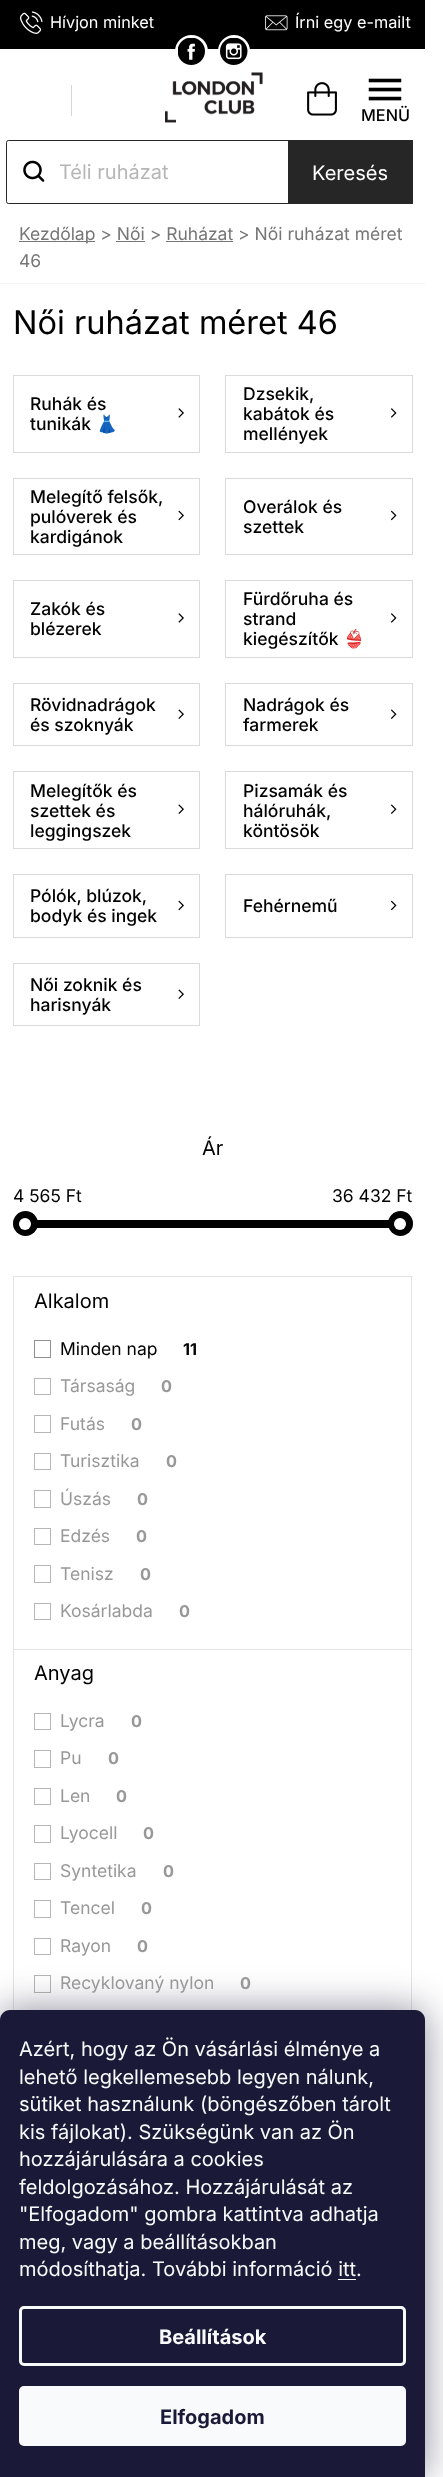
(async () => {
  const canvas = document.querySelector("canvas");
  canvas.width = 443;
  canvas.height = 2477;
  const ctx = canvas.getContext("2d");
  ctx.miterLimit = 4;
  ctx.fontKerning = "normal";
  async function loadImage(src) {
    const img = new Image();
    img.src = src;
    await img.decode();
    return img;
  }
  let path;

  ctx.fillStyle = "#ffffff";
  ctx.fillRect(0, 0, 443, 2477);
  ctx.fillStyle = "#000000";
  ctx.fillRect(0, 0, 425, 49);
  ctx.drawImage(await loadImage("img/1.png"), 20, 11, 23, 23);
  ctx.drawImage(await loadImage("img/2.png"), 265, 15, 23, 16);
  ctx.fillStyle = "#ffffff";
  ctx.beginPath();
  ctx.arc(191.5, 51.5, 15, 0, Math.PI * 2);
  ctx.fill();
  ctx.strokeStyle = "#ffffff";
  ctx.lineWidth = 3;
  ctx.stroke();
  ctx.drawImage(await loadImage("img/3.png"), 178, 38, 27, 27);
  ctx.beginPath();
  ctx.roundRect(219.5, 36.5, 29, 30, 14.5);
  ctx.fill();
  ctx.stroke();
  ctx.drawImage(await loadImage("img/4.png"), 220, 38, 28, 27);
  ctx.drawImage(await loadImage("img/5.png"), 165, 72, 98, 51);
  ctx.fillStyle = "#d7d7d7";
  ctx.fillRect(71, 85, 1, 31);
  ctx.drawImage(await loadImage("img/6.png"), 307, 82, 30, 34);
  ctx.drawImage(await loadImage("img/7.png"), 368, 78, 34, 23);
  ctx.beginPath();
  ctx.roundRect(6.5, 140.5, 406, 63, 2);
  ctx.strokeStyle = "#262626";
  ctx.lineWidth = 1;
  ctx.stroke();
  ctx.drawImage(await loadImage("img/8.png"), 23, 160, 22, 22);
  for (const [x, y, w, h, color] of [
    [288, 140, 125, 64, "#262626"],
    [0, 283, 425, 1, "#f6f6f6"],
    [19, 241, 76, 1, "#767676"],
    [116, 241, 29, 1, "#767676"],
    [166, 241, 67, 1, "#767676"],
  ]) {
    ctx.fillStyle = color;
    ctx.fillRect(x, y, w, h);
  }
  ctx.strokeStyle = "#dadada";
  ctx.strokeRect(13.5, 375.5, 186, 77);
  ctx.drawImage(await loadImage("img/9.png"), 178, 408, 6, 10);
  ctx.strokeRect(225.5, 375.5, 187, 77);
  ctx.drawImage(await loadImage("img/10.png"), 390, 408, 7, 10);
  ctx.strokeRect(13.5, 478.5, 186, 76);
  ctx.drawImage(await loadImage("img/11.png"), 178, 510, 6, 11);
  ctx.strokeRect(225.5, 478.5, 187, 76);
  ctx.drawImage(await loadImage("img/12.png"), 390, 510, 7, 11);
  ctx.strokeRect(13.5, 580.5, 186, 77);
  ctx.drawImage(await loadImage("img/9.png"), 178, 613, 6, 10);
  ctx.strokeRect(225.5, 580.5, 187, 77);
  ctx.drawImage(await loadImage("img/10.png"), 390, 613, 7, 10);
  ctx.strokeRect(13.5, 683.5, 186, 62);
  ctx.drawImage(await loadImage("img/13.png"), 178, 709, 6, 10);
  ctx.strokeRect(225.5, 683.5, 187, 62);
  ctx.drawImage(await loadImage("img/14.png"), 390, 709, 7, 10);
  ctx.strokeRect(13.5, 771.5, 186, 77);
  ctx.drawImage(await loadImage("img/13.png"), 178, 804, 6, 10);
  ctx.strokeRect(225.5, 771.5, 187, 77);
  ctx.drawImage(await loadImage("img/14.png"), 390, 804, 7, 10);
  ctx.strokeRect(13.5, 874.5, 186, 63);
  ctx.drawImage(await loadImage("img/11.png"), 178, 900, 6, 11);
  ctx.strokeRect(225.5, 874.5, 187, 63);
  ctx.drawImage(await loadImage("img/12.png"), 390, 900, 7, 11);
  ctx.strokeRect(13.5, 963.5, 186, 62);
  ctx.drawImage(await loadImage("img/13.png"), 178, 989, 6, 10);
  ctx.fillStyle = "#dadada";
  ctx.fillRect(13, 1220, 400, 8);
  ctx.fillStyle = "#000000";
  ctx.fillRect(37, 1220, 352, 8);
  ctx.beginPath();
  ctx.arc(25.5, 1223.5, 12.5, 0, Math.PI * 2);
  ctx.fill();
  ctx.fillStyle = "#ffffff";
  ctx.beginPath();
  ctx.arc(25, 1224, 6, 0, Math.PI * 2);
  ctx.fill();
  ctx.fillStyle = "#000000";
  ctx.beginPath();
  ctx.arc(400.5, 1223.5, 12.5, 0, Math.PI * 2);
  ctx.fill();
  ctx.fillStyle = "#ffffff";
  ctx.beginPath();
  ctx.arc(400, 1224, 6, 0, Math.PI * 2);
  ctx.fill();
  for (const [x, y, w, h, color] of [
    [13, 1276, 400, 1, "#e4e4e4"],
    [411, 1276, 1, 373, "#e4e4e4"],
    [13, 1276, 1, 373, "#e4e4e4"],
  ]) {
    ctx.fillStyle = color;
    ctx.fillRect(x, y, w, h);
  }
  ctx.strokeStyle = "#919191";
  ctx.strokeRect(34.5, 1340.5, 16, 17);
  ctx.strokeStyle = "#b6b6b6";
  ctx.strokeRect(34.5, 1378.5, 16, 16);
  ctx.strokeRect(34.5, 1415.5, 16, 17);
  ctx.strokeRect(34.5, 1453.5, 16, 16);
  ctx.strokeRect(34.5, 1490.5, 16, 17);
  ctx.strokeRect(34.5, 1528.5, 16, 16);
  ctx.strokeRect(34.5, 1565.5, 16, 17);
  ctx.strokeRect(34.5, 1603.5, 16, 16);
  for (const [x, y, w, h, color] of [
    [13, 1649, 400, 1, "#e4e4e4"],
    [411, 1649, 1, 361, "#e4e4e4"],
    [13, 1649, 1, 361, "#e4e4e4"],
  ]) {
    ctx.fillStyle = color;
    ctx.fillRect(x, y, w, h);
  }
  ctx.strokeRect(34.5, 1713.5, 16, 16);
  ctx.strokeRect(34.5, 1750.5, 16, 17);
  ctx.strokeRect(34.5, 1788.5, 16, 16);
  ctx.strokeRect(34.5, 1825.5, 16, 17);
  ctx.strokeRect(34.5, 1863.5, 16, 16);
  ctx.strokeRect(34.5, 1900.5, 16, 17);
  ctx.strokeRect(34.5, 1938.5, 16, 16);
  ctx.strokeRect(34.5, 1975.5, 16, 17);
  ctx.fillStyle = "rgba(27, 25, 57, 0.5)";
  ctx.filter = "blur(19px)";
  ctx.beginPath();
  ctx.roundRect(0, 2010, 425, 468, 10);
  ctx.fill();
  ctx.filter = "none";
  ctx.fillStyle = "#1a1937";
  path = new Path2D("M10 2010H415C420.5 2010 425 2014.5 425 2020V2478H0V2020C0 2014.5 4.5 2010 10 2010Z");
  ctx.fill(path);
  ctx.fillStyle = "#f8fafb";
  ctx.fillRect(338, 2279, 18, 1);
  ctx.beginPath();
  ctx.roundRect(20.5, 2307.5, 384, 57, 3.5);
  ctx.strokeStyle = "#f8fafb";
  ctx.lineWidth = 3;
  ctx.stroke();
  ctx.beginPath();
  ctx.roundRect(19, 2386, 387, 60, 5);
  ctx.fill();
  ctx.font = "16.25px Inter";
  ctx.fillStyle = "#ffffff";
  ctx.fillText("Hívjon minket", 50, 28);
  ctx.fillText("Írni egy e-mailt", 295, 28);
  ctx.font = "500 16.25px Inter";
  ctx.fillStyle = "#000000";
  ctx.fillText("MENÜ", 361, 121);
  ctx.font = "20px Inter";
  ctx.fillStyle = "#b6b6b6";
  ctx.fillText("Téli ruházat", 59, 179);
  ctx.fillStyle = "#ffffff";
  ctx.fillText("Keresés", 312, 180);
  ctx.font = "17.5px Inter";
  ctx.fillStyle = "#767676";
  ctx.fillText("Kezdőlap > Női > Ruházat > Női ruházat méret", 19, 240);
  ctx.fillText("46", 19, 267);
  ctx.font = "32.5px Inter";
  ctx.fillStyle = "#000000";
  ctx.fillText("Női ruházat méret 46", 13, 334);
  ctx.font = "500 17.5px Inter";
  ctx.fillText("Ruhák és", 30, 410);
  ctx.fillText("tunikák", 30, 430);
  ctx.font = "17.5px Noto Color Emoji";
  ctx.fillText("👗", 96, 430);
  ctx.font = "500 17.5px Inter";
  for (const [text, x, y] of [
    ["Dzsekik,", 243, 400],
    ["kabátok és", 243, 420],
    ["mellények", 243, 440],
    ["Melegítő felsők,", 30, 503],
    ["pulóverek és", 30, 523],
    ["kardigánok", 30, 543],
    ["Overálok és", 243, 513],
    ["szettek", 243, 533],
    ["Zakók és", 30, 615],
    ["blézerek", 30, 635],
    ["Fürdőruha és", 243, 605],
    ["strand", 243, 625],
    ["kiegészítők", 243, 645],
  ]) {
    ctx.fillText(text, x, y);
  }
  ctx.font = "17.5px Noto Color Emoji";
  ctx.fillText("👙", 343, 645);
  ctx.font = "500 17.5px Inter";
  for (const [text, x, y] of [
    ["Rövidnadrágok", 30, 711],
    ["és szoknyák", 30, 731],
    ["Nadrágok és", 243, 711],
    ["farmerek", 243, 731],
    ["Melegítők és", 30, 797],
    ["szettek és", 30, 817],
    ["leggingszek", 30, 837],
    ["Pizsamák és", 243, 797],
    ["hálóruhák,", 243, 817],
    ["köntösök", 243, 837],
    ["Pólók, blúzok,", 30, 902],
    ["bodyk és ingek", 30, 922],
    ["Fehérnemű", 243, 912],
    ["Női zoknik és", 30, 991],
    ["harisnyák", 30, 1011],
  ]) {
    ctx.fillText(text, x, y);
  }
  ctx.font = "20px Inter";
  ctx.fillText("Ár", 202, 1155);
  ctx.font = "17.5px Inter";
  ctx.fillText("4 565 Ft", 13, 1202);
  ctx.fillText("36 432 Ft", 332, 1202);
  ctx.font = "20px Inter";
  ctx.fillText("Alkalom", 34, 1308);
  ctx.font = "17.5px Inter";
  ctx.fillText("Minden nap", 60, 1355);
  ctx.font = "bold 16.25px Inter";
  ctx.fillText("11", 183, 1355);
  ctx.font = "17.5px Inter";
  ctx.fillStyle = "#989898";
  ctx.fillText("Társaság", 60, 1392);
  ctx.font = "bold 16.25px Inter";
  ctx.fillText("0", 161, 1392);
  ctx.font = "17.5px Inter";
  ctx.fillText("Futás", 60, 1430);
  ctx.font = "bold 16.25px Inter";
  ctx.fillText("0", 131, 1430);
  ctx.font = "17.5px Inter";
  ctx.fillText("Turisztika", 60, 1467);
  ctx.font = "bold 16.25px Inter";
  ctx.fillText("0", 166, 1467);
  ctx.font = "17.5px Inter";
  ctx.fillText("Úszás", 60, 1505);
  ctx.font = "bold 16.25px Inter";
  ctx.fillText("0", 137, 1505);
  ctx.font = "17.5px Inter";
  ctx.fillText("Edzés", 60, 1542);
  ctx.font = "bold 16.25px Inter";
  ctx.fillText("0", 136, 1542);
  ctx.font = "17.5px Inter";
  ctx.fillText("Tenisz", 60, 1580);
  ctx.font = "bold 16.25px Inter";
  ctx.fillText("0", 140, 1580);
  ctx.font = "17.5px Inter";
  ctx.fillText("Kosárlabda", 60, 1617);
  ctx.font = "bold 16.25px Inter";
  ctx.fillText("0", 179, 1617);
  ctx.font = "20px Inter";
  ctx.fillStyle = "#000000";
  ctx.fillText("Anyag", 34, 1680);
  ctx.font = "17.5px Inter";
  ctx.fillStyle = "#989898";
  ctx.fillText("Lycra", 60, 1727);
  ctx.font = "bold 16.25px Inter";
  ctx.fillText("0", 131, 1727);
  ctx.font = "17.5px Inter";
  ctx.fillText("Pu", 60, 1764);
  ctx.font = "bold 16.25px Inter";
  ctx.fillText("0", 108, 1764);
  ctx.font = "17.5px Inter";
  ctx.fillText("Len", 60, 1802);
  ctx.font = "bold 16.25px Inter";
  ctx.fillText("0", 116, 1802);
  ctx.font = "17.5px Inter";
  ctx.fillText("Lyocell", 60, 1839);
  ctx.font = "bold 16.25px Inter";
  ctx.fillText("0", 143, 1839);
  ctx.font = "17.5px Inter";
  ctx.fillText("Syntetika", 60, 1877);
  ctx.font = "bold 16.25px Inter";
  ctx.fillText("0", 163, 1877);
  ctx.font = "17.5px Inter";
  ctx.fillText("Tencel", 60, 1914);
  ctx.font = "bold 16.25px Inter";
  ctx.fillText("0", 141, 1914);
  ctx.font = "17.5px Inter";
  ctx.fillText("Rayon", 60, 1952);
  ctx.font = "bold 16.25px Inter";
  ctx.fillText("0", 137, 1952);
  ctx.font = "17.5px Inter";
  ctx.fillText("Recyklovaný nylon", 60, 1989);
  ctx.font = "bold 16.25px Inter";
  ctx.fillText("0", 240, 1989);
  ctx.font = "20px Inter";
  ctx.fillStyle = "#f8fafb";
  for (const [text, x, y] of [
    ["Azért, hogy az Ön vásárlási élménye a", 19, 2056],
    ["lehető legkellemesebb legyen nálunk,", 19, 2084],
    ["sütiket használunk (böngészőben tárolt", 19, 2111],
    ["kis fájlokat). Szükségünk van az Ön", 19, 2139],
    ["hozzájárulására a cookies", 19, 2166],
    ["feldolgozásához. Hozzájárulását az", 19, 2194],
    ["\"Elfogadom\" gombra kattintva adhatja", 19, 2221],
    ["meg, vagy a beállításokban", 19, 2249],
    ["módosíthatja. További információ itt.", 19, 2276],
  ]) {
    ctx.fillText(text, x, y);
  }
  ctx.font = "bold 20px Inter";
  ctx.fillText("Beállítások", 159, 2344);
  ctx.fillStyle = "#1a1937";
  ctx.fillText("Elfogadom", 160, 2424);
})();
